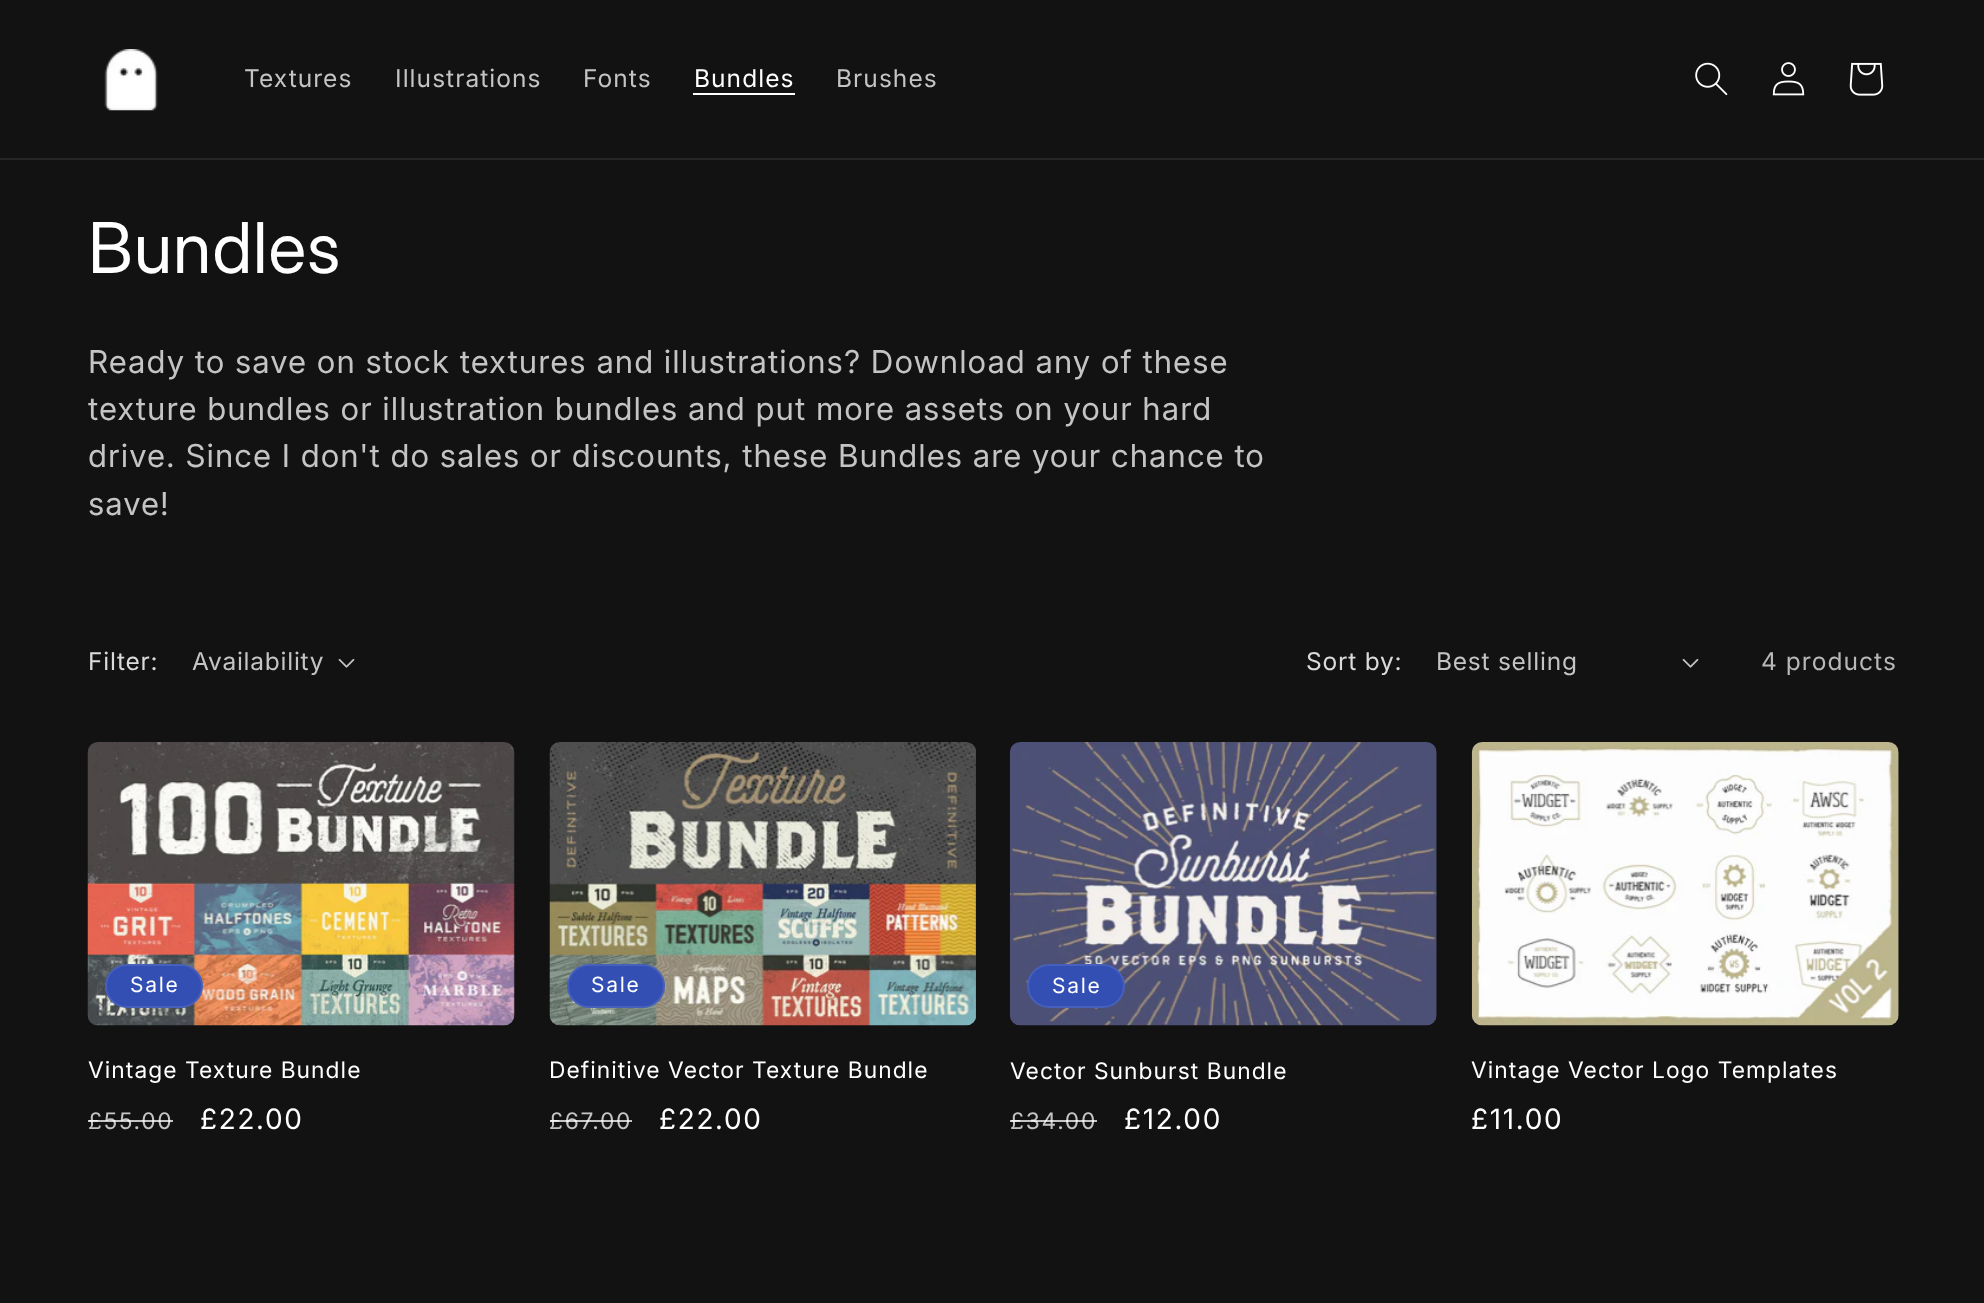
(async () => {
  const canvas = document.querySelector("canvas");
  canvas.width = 1984;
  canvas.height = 1303;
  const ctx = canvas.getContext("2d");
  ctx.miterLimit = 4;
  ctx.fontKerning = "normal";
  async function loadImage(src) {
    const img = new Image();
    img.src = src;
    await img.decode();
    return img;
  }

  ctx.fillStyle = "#121212";
  ctx.fillRect(0, 0, 1984, 1303);
  ctx.fillStyle = "#252525";
  ctx.fillRect(0, 158, 1984, 2);
  ctx.drawImage(await loadImage("img/1.png"), 104, 49, 54, 62);
  ctx.fillStyle = "#ffffff";
  ctx.fillRect(693, 93, 102, 2);
  ctx.drawImage(await loadImage("img/2.png"), 1695, 62, 33, 34);
  ctx.drawImage(await loadImage("img/3.png"), 1772, 62, 33, 34);
  ctx.drawImage(await loadImage("img/4.png"), 1849, 62, 35, 34);
  ctx.drawImage(await loadImage("img/5.png"), 338, 658, 17, 10);
  ctx.drawImage(await loadImage("img/5.png"), 1682, 658, 17, 10);
  ctx.drawImage(await loadImage("img/6.png"), 87, 742, 428, 284);
  ctx.fillStyle = "#334fb4";
  ctx.beginPath();
  ctx.roundRect(105, 964, 98, 44, 22);
  ctx.fill();
  ctx.beginPath();
  ctx.roundRect(106, 965, 96, 42, 21);
  ctx.strokeStyle = "rgba(255, 255, 255, 0.1)";
  ctx.lineWidth = 2;
  ctx.stroke();
  ctx.drawImage(await loadImage("img/7.png"), 549, 742, 427, 284);
  ctx.beginPath();
  ctx.roundRect(567, 964, 98, 44, 22);
  ctx.fill();
  ctx.beginPath();
  ctx.roundRect(568, 965, 96, 42, 21);
  ctx.stroke();
  ctx.drawImage(await loadImage("img/8.png"), 1009, 742, 428, 284);
  ctx.beginPath();
  ctx.roundRect(1027, 964, 98, 44, 22);
  ctx.fill();
  ctx.beginPath();
  ctx.roundRect(1028, 965, 96, 42, 21);
  ctx.stroke();
  ctx.drawImage(await loadImage("img/9.png"), 1471, 742, 428, 284);
  ctx.letterSpacing = "1.05px";
  ctx.font = "24.5px 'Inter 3'";
  ctx.fillStyle = "#c4c4c4";
  for (const [text, x, y] of [
    ["Textures", 244, 87],
    ["Illustrations", 395, 87],
    ["Fonts", 583, 87],
  ]) {
    ctx.fillText(text, x, y);
  }
  ctx.fillStyle = "#ffffff";
  ctx.fillText("Bundles", 694, 87);
  ctx.fillStyle = "#c4c4c4";
  ctx.fillText("Brushes", 836, 87);
  ctx.font = "70px Inter";
  ctx.fillStyle = "#ffffff";
  ctx.fillText("Bundles", 88, 273);
  ctx.font = "31.5px 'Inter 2'";
  ctx.fillStyle = "#c4c4c4";
  for (const [text, x, y] of [
    ["Ready to save on stock textures and illustrations? Download any of these", 88, 373],
    ["texture bundles or illustration bundles and put more assets on your hard", 88, 420],
    ["drive. Since I don't do sales or discounts, these Bundles are your chance to", 88, 467],
    ["save!", 88, 515],
  ]) {
    ctx.fillText(text, x, y);
  }
  ctx.letterSpacing = "0.75px";
  ctx.font = "24.5px 'Inter 3'";
  ctx.fillStyle = "#dbdbdb";
  ctx.fillText("Filter:", 88, 670);
  ctx.fillStyle = "#c4c4c4";
  ctx.fillText("Availability", 192, 670);
  ctx.fillStyle = "#dbdbdb";
  ctx.fillText("Sort by:", 1306, 670);
  ctx.fillStyle = "#c4c4c4";
  ctx.fillText("Best selling", 1436, 670);
  ctx.letterSpacing = "1.05px";
  ctx.fillStyle = "#b8b8b8";
  ctx.fillText("4 products", 1761, 670);
  ctx.letterSpacing = "1.75px";
  ctx.font = "21px 'Inter 3'";
  ctx.fillStyle = "#ffffff";
  ctx.fillText("Sale", 130, 992);
  ctx.letterSpacing = "1.05px";
  ctx.font = "22.75px 'Inter 3'";
  ctx.fillText("Vintage Texture Bundle", 88, 1078);
  ctx.letterSpacing = "1.75px";
  ctx.fillStyle = "#c4c4c4";
  ctx.fillText("£55.00", 88, 1129);
  ctx.fillStyle = "rgba(255, 255, 255, 0.75)";
  ctx.fillRect(88, 1120, 85, 2);
  ctx.font = "28px 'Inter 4'";
  ctx.fillStyle = "#ffffff";
  ctx.fillText("£22.00", 200, 1129);
  ctx.font = "21px 'Inter 3'";
  ctx.fillText("Sale", 591, 992);
  ctx.letterSpacing = "1.05px";
  ctx.font = "22.75px 'Inter 3'";
  ctx.fillText("Definitive Vector Texture Bundle", 549, 1078);
  ctx.letterSpacing = "1.75px";
  ctx.fillStyle = "#c4c4c4";
  ctx.fillText("£67.00", 549, 1129);
  ctx.fillStyle = "rgba(255, 255, 255, 0.75)";
  ctx.fillRect(550, 1120, 82, 2);
  ctx.font = "28px 'Inter 4'";
  ctx.fillStyle = "#ffffff";
  ctx.fillText("£22.00", 659, 1129);
  ctx.font = "21px 'Inter 3'";
  ctx.fillText("Sale", 1052, 993);
  ctx.letterSpacing = "1.05px";
  ctx.font = "22.75px 'Inter 3'";
  ctx.fillText("Vector Sunburst Bundle", 1010, 1079);
  ctx.letterSpacing = "1.75px";
  ctx.fillStyle = "#c4c4c4";
  ctx.fillText("£34.00", 1010, 1129);
  ctx.fillStyle = "rgba(255, 255, 255, 0.75)";
  ctx.fillRect(1010, 1120, 87, 2);
  ctx.font = "28px 'Inter 4'";
  ctx.fillStyle = "#ffffff";
  ctx.fillText("£12.00", 1124, 1129);
  ctx.letterSpacing = "1.05px";
  ctx.font = "22.75px 'Inter 3'";
  ctx.fillText("Vintage Vector Logo Templates", 1471, 1078);
  ctx.letterSpacing = "1.75px";
  ctx.font = "28px 'Inter 4'";
  ctx.fillText("£11.00", 1471, 1129);
})();
